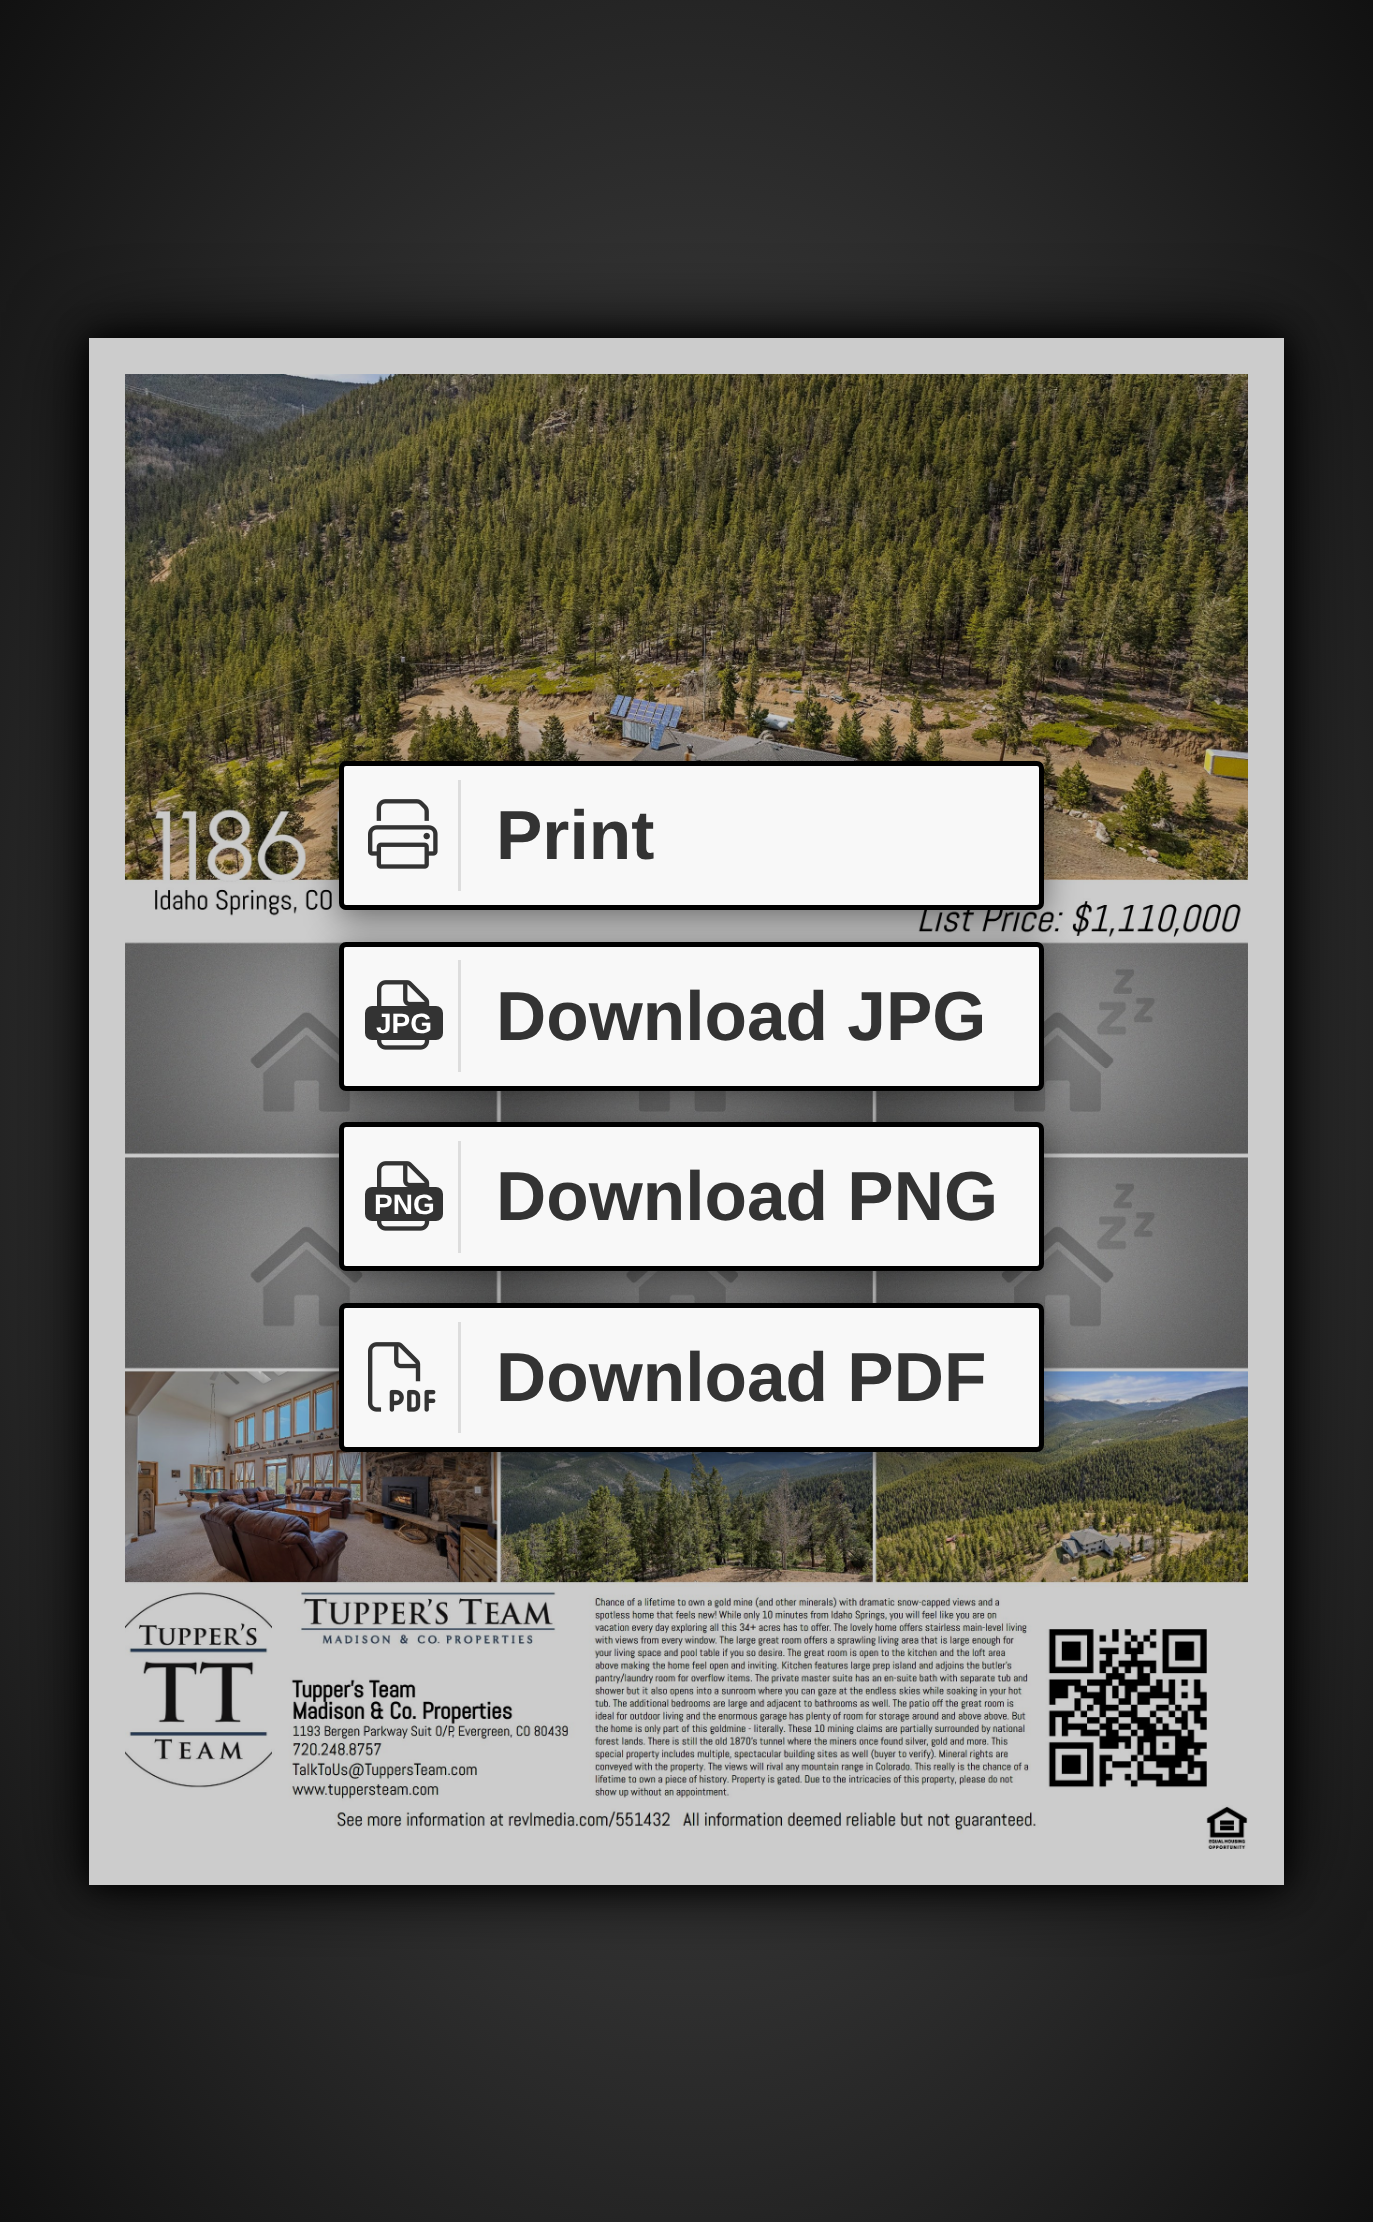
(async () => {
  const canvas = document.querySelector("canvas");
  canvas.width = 1373;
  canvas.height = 2222;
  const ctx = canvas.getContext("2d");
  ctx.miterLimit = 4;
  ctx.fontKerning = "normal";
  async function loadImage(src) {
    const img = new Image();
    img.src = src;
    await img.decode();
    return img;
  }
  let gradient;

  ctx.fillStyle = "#ffffff";
  ctx.fillRect(0, 0, 1373, 2222);
  gradient = ctx.createRadialGradient(687, 686.68, 0, 687, 686.68, 971);
  gradient.addColorStop(0, "#888888");
  gradient.addColorStop(0.25, "#555555");
  gradient.addColorStop(0.5, "#333333");
  gradient.addColorStop(0.75, "#222222");
  gradient.addColorStop(1, "#111111");
  ctx.fillStyle = gradient;
  ctx.beginPath();
  ctx.rect(0, 0, 1373, 2222);
  ctx.save();
  ctx.clip();
  ctx.scale(1, 1571 / 971);
  ctx.fillRect(0, 0, 1373, 1374);
  ctx.restore();
  ctx.fillStyle = "#000000";
  ctx.filter = "blur(40px)";
  ctx.beginPath();
  ctx.rect(89, 338, 1195, 1547);
  ctx.fill();
  ctx.filter = "none";
  ctx.filter = "blur(15px)";
  ctx.beginPath();
  ctx.rect(89, 338, 1195, 1547);
  ctx.fill();
  ctx.filter = "none";
  ctx.fillStyle = "#cccccc";
  ctx.fillRect(89, 338, 1195, 1547);
  ctx.drawImage(await loadImage("img/1.png"), 125, 374, 1123, 1475);
  ctx.fillStyle = "rgba(0, 0, 0, 0.5)";
  ctx.filter = "blur(17.5px)";
  ctx.beginPath();
  ctx.roundRect(339, 768, 705, 149, 7);
  ctx.fill();
  ctx.filter = "none";
  ctx.fillStyle = "#f8f8f8";
  ctx.beginPath();
  ctx.roundRect(341.5, 763.5, 700, 144, 4.5);
  ctx.fill();
  ctx.strokeStyle = "#000000";
  ctx.lineWidth = 5;
  ctx.stroke();
  ctx.fillStyle = "#dddddd";
  ctx.fillRect(458, 780, 3, 111);
  ctx.drawImage(await loadImage("img/2.png"), 368, 799, 70, 70);
  ctx.fillStyle = "rgba(0, 0, 0, 0.5)";
  ctx.filter = "blur(17.5px)";
  ctx.beginPath();
  ctx.roundRect(339, 949, 705, 149, 7);
  ctx.fill();
  ctx.filter = "none";
  ctx.fillStyle = "#f8f8f8";
  ctx.beginPath();
  ctx.roundRect(341.5, 944.5, 700, 144, 4.5);
  ctx.fill();
  ctx.stroke();
  ctx.fillStyle = "#dddddd";
  ctx.fillRect(458, 960, 3, 112);
  ctx.drawImage(await loadImage("img/3.png"), 377, 980, 53, 70);
  ctx.fillStyle = "#333333";
  ctx.beginPath();
  ctx.roundRect(365, 1006, 78, 34, 7);
  ctx.fill();
  ctx.fillStyle = "rgba(0, 0, 0, 0.5)";
  ctx.filter = "blur(17.5px)";
  ctx.beginPath();
  ctx.roundRect(339, 1129, 705, 149, 7);
  ctx.fill();
  ctx.filter = "none";
  ctx.fillStyle = "#f8f8f8";
  ctx.beginPath();
  ctx.roundRect(341.5, 1124.5, 700, 144, 4.5);
  ctx.fill();
  ctx.stroke();
  ctx.fillStyle = "#dddddd";
  ctx.fillRect(458, 1141, 3, 112);
  ctx.drawImage(await loadImage("img/3.png"), 377, 1161, 53, 70);
  ctx.fillStyle = "#333333";
  ctx.beginPath();
  ctx.roundRect(365, 1187, 78, 34, 7);
  ctx.fill();
  ctx.fillStyle = "rgba(0, 0, 0, 0.5)";
  ctx.filter = "blur(17.5px)";
  ctx.beginPath();
  ctx.roundRect(339, 1310, 705, 149, 7);
  ctx.fill();
  ctx.filter = "none";
  ctx.fillStyle = "#f8f8f8";
  ctx.beginPath();
  ctx.roundRect(341.5, 1305.5, 700, 144, 4.5);
  ctx.fill();
  ctx.stroke();
  ctx.fillStyle = "#dddddd";
  ctx.fillRect(458, 1322, 3, 111);
  ctx.drawImage(await loadImage("img/4.png"), 368, 1342, 68, 70);
  ctx.font = "bold 69.5px Liberation Sans";
  ctx.fillStyle = "#333333";
  ctx.fillText("Print", 496, 859);
  ctx.font = "bold 28px Liberation Sans";
  ctx.fillStyle = "#ffffff";
  ctx.fillText("JPG", 376, 1033);
  ctx.font = "bold 69.5px Liberation Sans";
  ctx.fillStyle = "#333333";
  ctx.fillText("Download JPG", 496, 1040);
  ctx.font = "bold 28px Liberation Sans";
  ctx.fillStyle = "#ffffff";
  ctx.fillText("PNG", 374, 1214);
  ctx.font = "bold 69.5px Liberation Sans";
  ctx.fillStyle = "#333333";
  ctx.fillText("Download PNG", 496, 1220);
  ctx.fillText("Download PDF", 496, 1401);
})();
